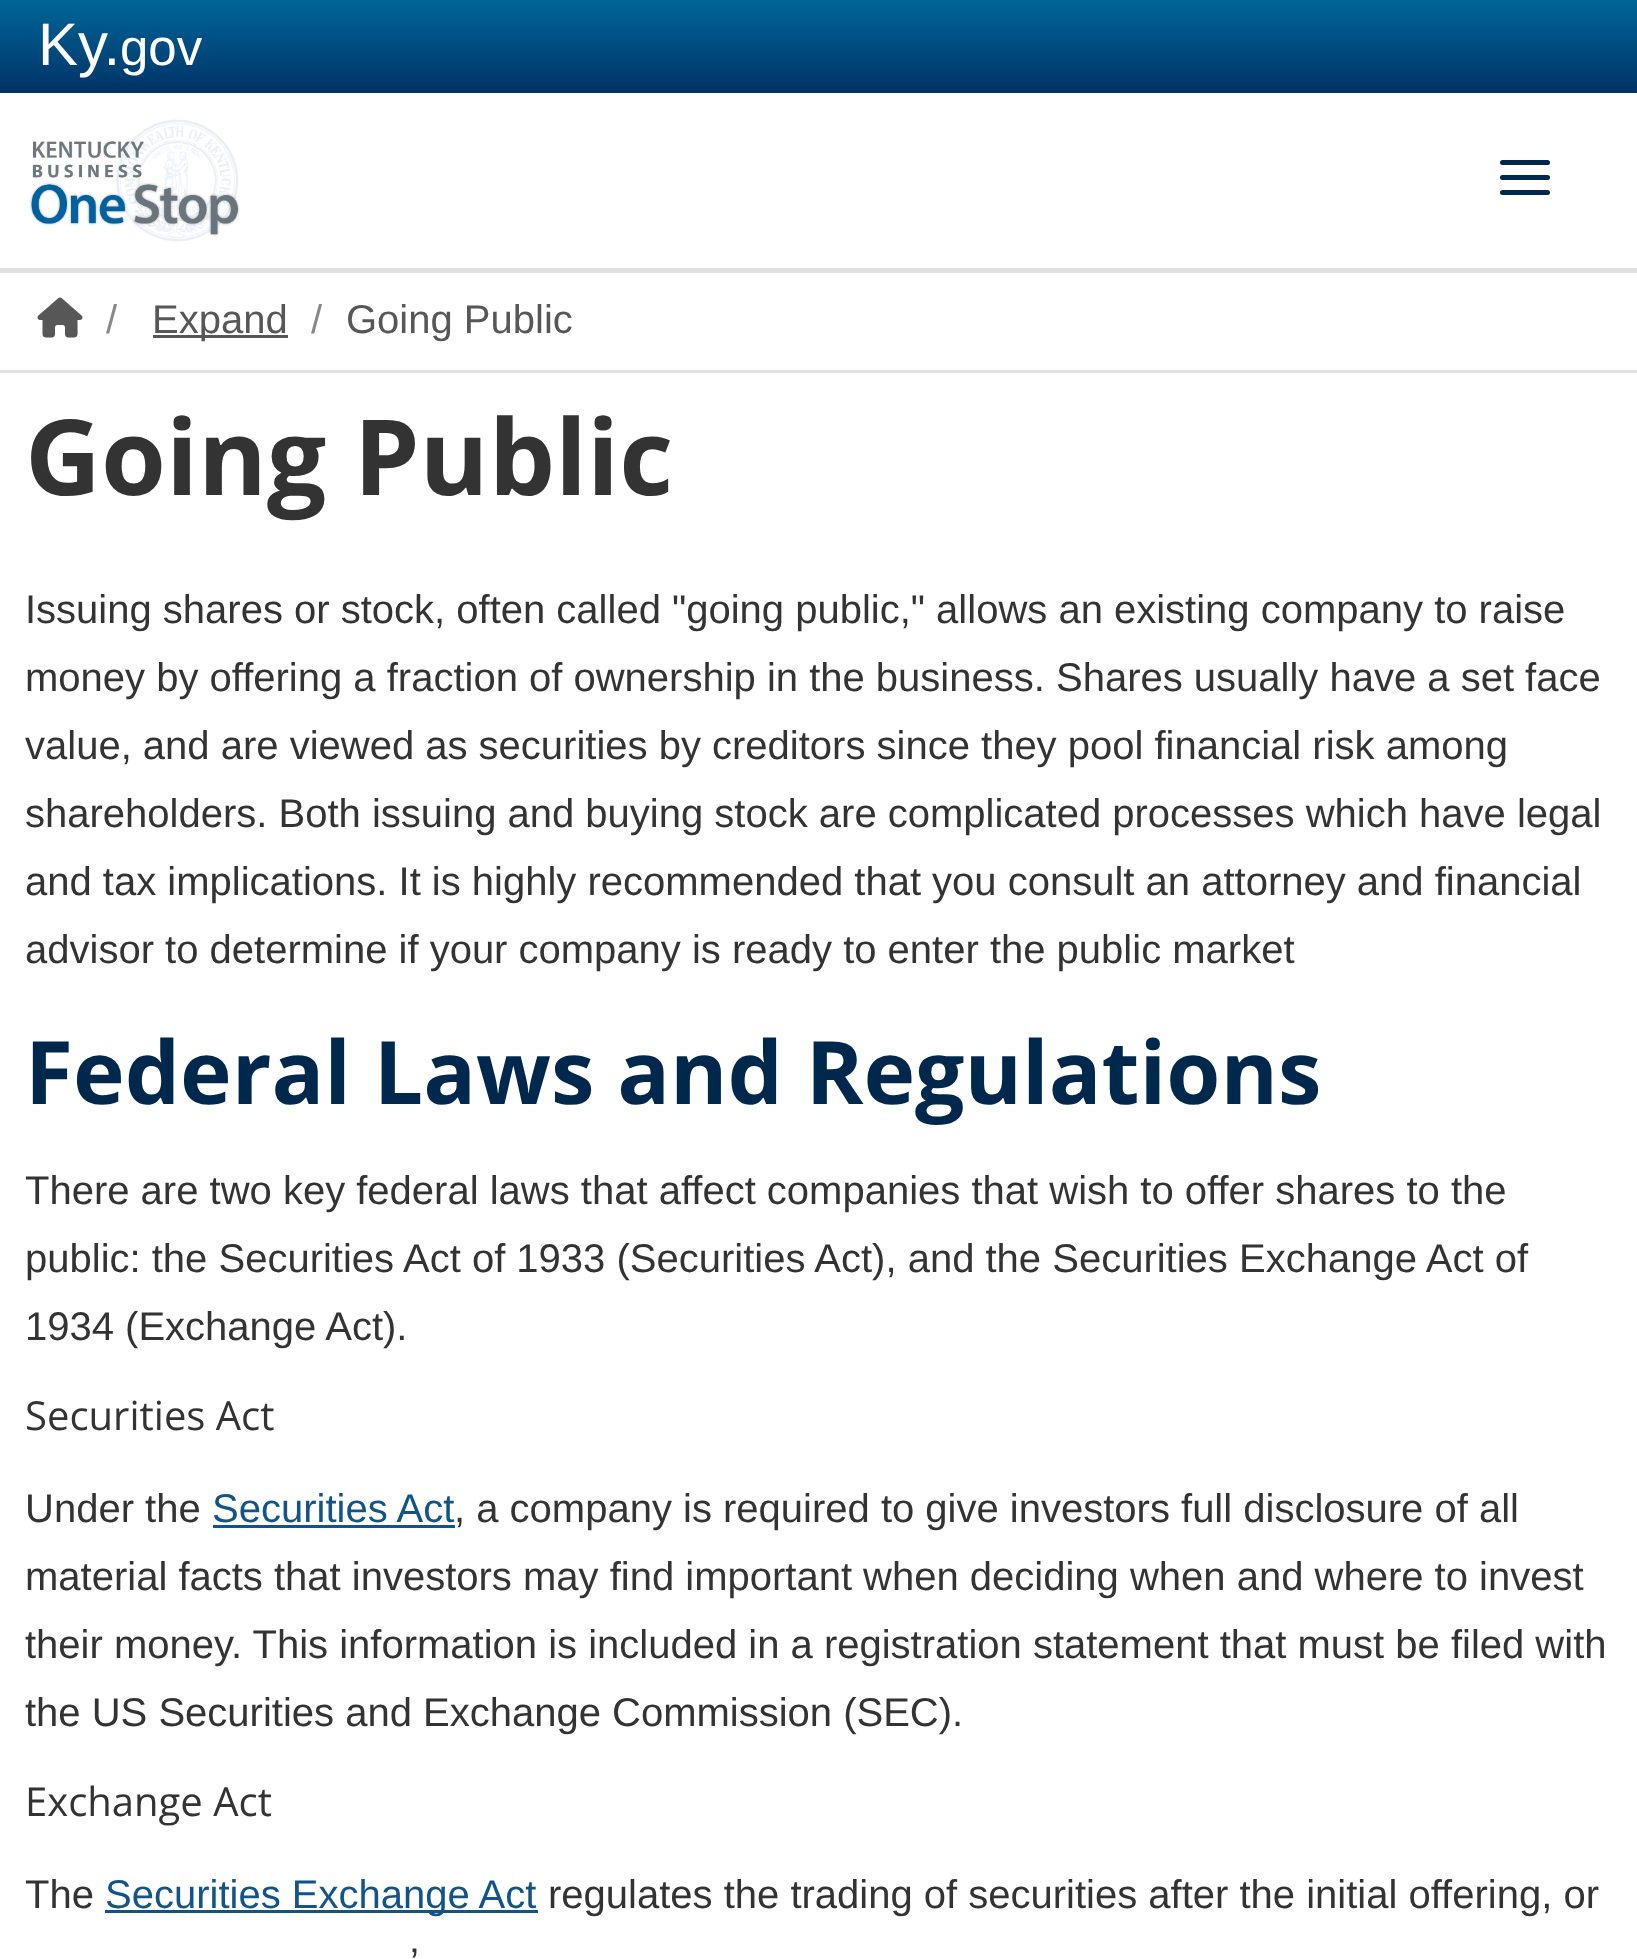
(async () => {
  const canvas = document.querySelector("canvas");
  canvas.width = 1637;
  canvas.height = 1959;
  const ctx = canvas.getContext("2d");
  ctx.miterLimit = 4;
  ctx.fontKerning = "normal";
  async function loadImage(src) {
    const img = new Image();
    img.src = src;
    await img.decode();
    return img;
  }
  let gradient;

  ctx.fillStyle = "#ffffff";
  ctx.fillRect(0, 0, 1637, 1959);
  gradient = ctx.createLinearGradient(819, 0, 819, 93);
  gradient.addColorStop(0, "#006699");
  gradient.addColorStop(1, "#003366");
  ctx.fillStyle = gradient;
  ctx.fillRect(0, 0, 1637, 93);
  ctx.drawImage(await loadImage("img/1.png"), 29, 119, 211, 123);
  ctx.fillStyle = "#00284d";
  ctx.beginPath();
  ctx.roundRect(1500, 175, 50, 5, 2.5);
  ctx.fill();
  ctx.beginPath();
  ctx.roundRect(1500, 160, 50, 5, 2.5);
  ctx.fill();
  ctx.beginPath();
  ctx.roundRect(1500, 190, 50, 5, 2.5);
  ctx.fill();
  ctx.fillStyle = "#dfe1e2";
  ctx.fillRect(0, 268, 1637, 5);
  ctx.fillRect(0, 370, 1637, 3);
  ctx.drawImage(await loadImage("img/2.png"), 37, 297, 46, 41);
  for (const [x, y, w, h, color] of [
    [153, 335, 135, 3, "#575757"],
    [213, 1525, 242, 3, "#125488"],
    [105, 1910, 433, 3, "#125488"],
  ]) {
    ctx.fillStyle = color;
    ctx.fillRect(x, y, w, h);
  }
  ctx.font = "60px Liberation Sans";
  ctx.fillStyle = "#ffffff";
  ctx.fillText("Ky.", 38, 65);
  ctx.font = "51px Liberation Sans";
  ctx.fillText("gov", 120, 65);
  ctx.font = "40px Liberation Sans";
  ctx.fillStyle = "#888888";
  ctx.fillText("/", 106, 333);
  ctx.fillStyle = "#575757";
  ctx.fillText("Expand", 152, 333);
  ctx.fillStyle = "#888888";
  ctx.fillText("/", 311, 333);
  ctx.fillStyle = "#575757";
  ctx.fillText("Going Public", 346, 333);
  ctx.font = "bold 105px Open Sans";
  ctx.fillStyle = "#333333";
  ctx.fillText("Going Public", 25, 495);
  ctx.font = "40px Liberation Sans";
  for (const [text, x, y] of [
    ["Issuing shares or stock, often called \"going public,\" allows an existing company to raise", 25, 623],
    ["money by offering a fraction of ownership in the business. Shares usually have a set face", 25, 691],
    ["value, and are viewed as securities by creditors since they pool financial risk among", 25, 759],
    ["shareholders. Both issuing and buying stock are complicated processes which have legal", 25, 827],
    ["and tax implications. It is highly recommended that you consult an attorney and financial", 25, 895],
    ["advisor to determine if your company is ready to enter the public market", 25, 963],
  ]) {
    ctx.fillText(text, x, y);
  }
  ctx.font = "bold 87.5px Open Sans";
  ctx.fillStyle = "#00284d";
  ctx.fillText("Federal Laws and Regulations", 25, 1104);
  ctx.font = "40px Liberation Sans";
  ctx.fillStyle = "#333333";
  for (const [text, x, y] of [
    ["There are two key federal laws that affect companies that wish to offer shares to the", 25, 1204],
    ["public: the Securities Act of 1933 (Securities Act), and the Securities Exchange Act of", 25, 1272],
    ["1934 (Exchange Act).", 25, 1340],
  ]) {
    ctx.fillText(text, x, y);
  }
  ctx.font = "40px Open Sans";
  ctx.fillText("Securities Act", 25, 1430);
  ctx.font = "40px Liberation Sans";
  ctx.fillText("Under the", 25, 1522);
  ctx.fillStyle = "#125488";
  ctx.fillText("Securities Act", 212, 1522);
  ctx.fillStyle = "#333333";
  for (const [text, x, y] of [
    [", a company is required to give investors full disclosure of all", 454, 1522],
    ["material facts that investors may find important when deciding when and where to invest", 25, 1590],
    ["their money. This information is included in a registration statement that must be filed with", 25, 1658],
    ["the US Securities and Exchange Commission (SEC).", 25, 1726],
  ]) {
    ctx.fillText(text, x, y);
  }
  ctx.font = "40px Open Sans";
  ctx.fillText("Exchange Act", 25, 1816);
  ctx.font = "40px Liberation Sans";
  ctx.fillText("The", 25, 1908);
  ctx.fillStyle = "#125488";
  ctx.fillText("Securities Exchange Act", 105, 1908);
  ctx.fillStyle = "#333333";
  ctx.fillText("regulates the trading of securities after the initial offering, or", 548, 1908);
  ctx.fillText("’", 410, 1976);
})();
